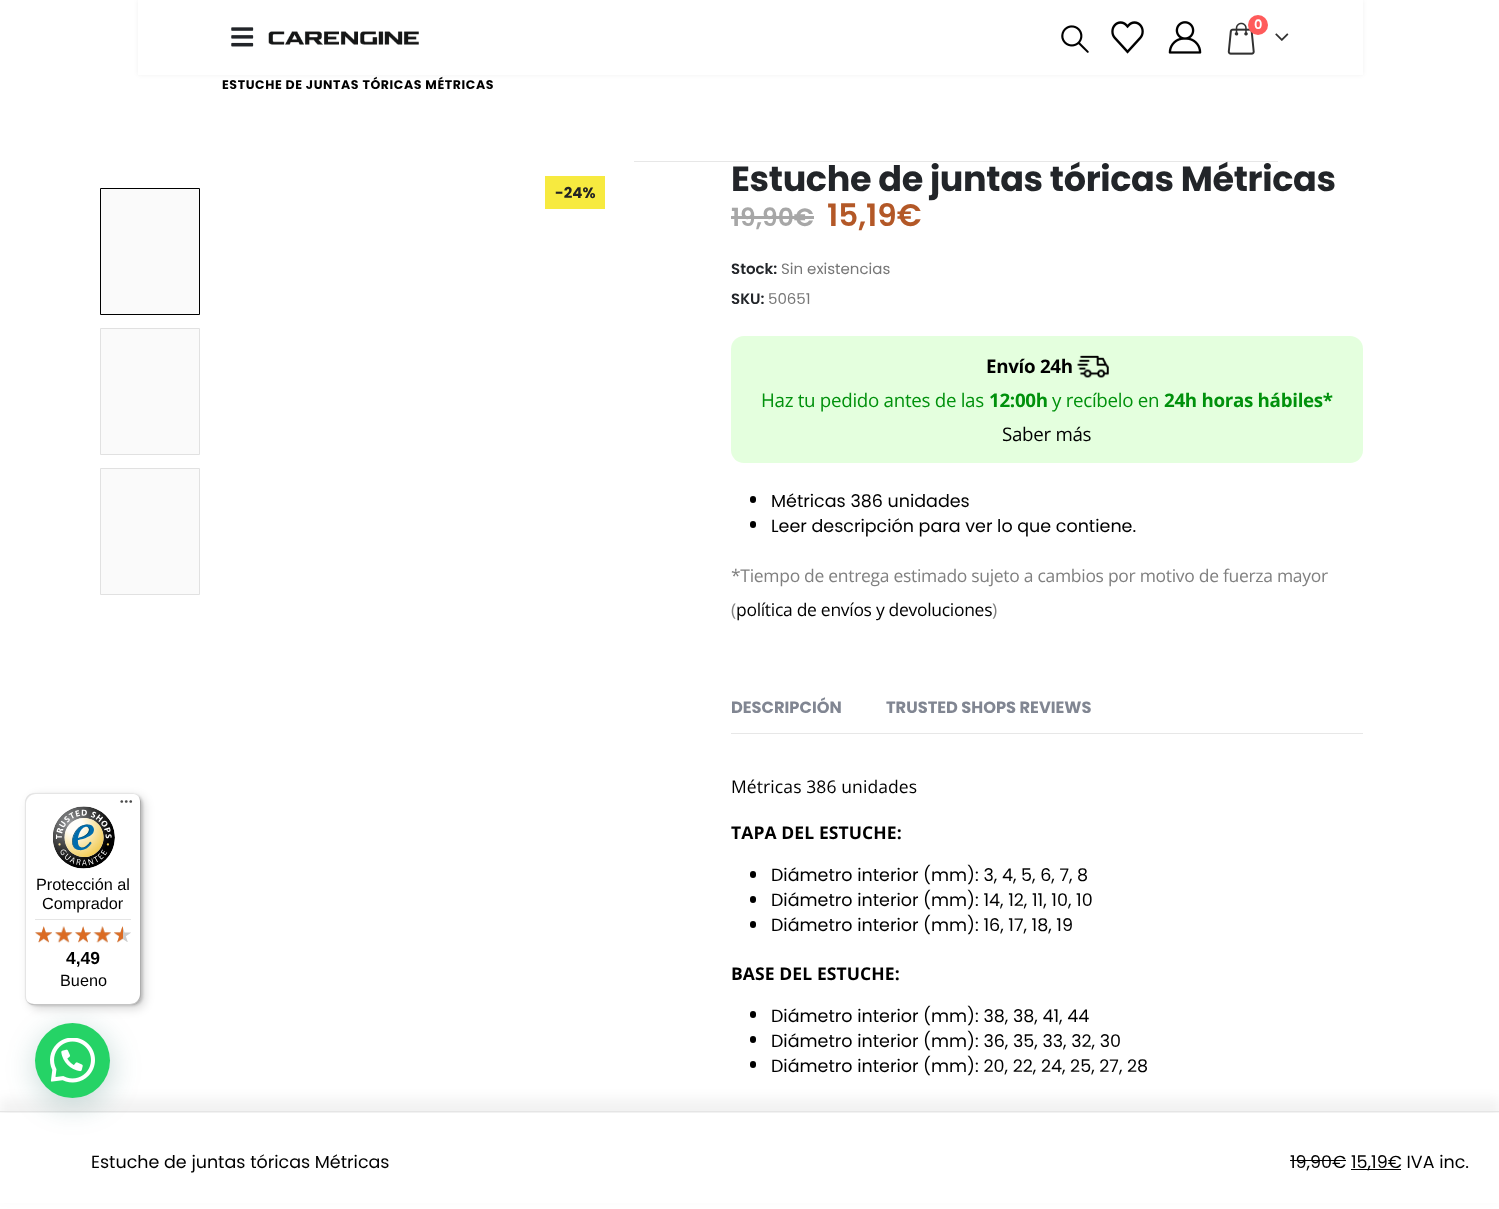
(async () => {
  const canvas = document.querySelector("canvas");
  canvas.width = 1499;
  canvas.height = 1209;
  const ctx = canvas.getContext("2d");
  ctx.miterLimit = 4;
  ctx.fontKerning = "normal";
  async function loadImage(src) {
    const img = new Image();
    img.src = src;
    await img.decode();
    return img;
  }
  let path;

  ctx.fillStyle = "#ffffff";
  ctx.fillRect(0, 0, 1499, 1209);
  ctx.fillStyle = "rgba(0, 0, 0, 0.05)";
  ctx.filter = "blur(6px)";
  ctx.beginPath();
  ctx.rect(0, 1099, 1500, 99);
  ctx.fill();
  ctx.filter = "none";
  ctx.fillStyle = "#ffffff";
  ctx.fillRect(0, 1113, 1499, 90);
  ctx.fillStyle = "#e5e5e5";
  ctx.fillRect(0, 1111, 1499, 1);
  ctx.fillStyle = "rgba(7, 94, 84, 0.24)";
  ctx.filter = "blur(15px)";
  ctx.beginPath();
  ctx.roundRect(36, 1030, 75, 75, 37.5);
  ctx.fill();
  ctx.filter = "none";
  ctx.fillStyle = "#25d366";
  ctx.beginPath();
  ctx.arc(72.5, 1060.5, 37.5, 0, Math.PI * 2);
  ctx.fill();
  ctx.fillStyle = "rgba(0, 0, 0, 0.15)";
  ctx.filter = "blur(5px)";
  ctx.beginPath();
  ctx.roundRect(29, 796, 116, 213, 10);
  ctx.fill();
  ctx.filter = "none";
  ctx.filter = "blur(1px)";
  ctx.beginPath();
  ctx.roundRect(26, 794, 117, 212, 10);
  ctx.fill();
  ctx.filter = "none";
  ctx.fillStyle = "#ffffff";
  ctx.beginPath();
  ctx.roundRect(25, 793, 116, 212, 10);
  ctx.fill();
  ctx.fillStyle = "rgba(0, 0, 0, 0.1)";
  path = new Path2D("M36 794H132C134 794 136 794 137 795C136 794 133 793 131 793H35C29 793 25 797 25 803V995C25 998 26 1001 28 1003C27 1001 26 999 26 996V804C26 798 31 794 36 794Z");
  ctx.fill(path);
  ctx.fillStyle = "rgba(0, 0, 0, 0.2)";
  path = new Path2D("M27 1002C29 1004 32 1005 35 1005H131C137 1005 141 1001 141 995V803C141 801 140 799 139 797L140 801V994C140 999 136 1004 130 1004H34C31 1004 29 1003 27 1002Z");
  ctx.fill(path);
  ctx.fillStyle = "rgba(50, 50, 50, 0.2)";
  path = new Path2D("M27 1001C29 1004 32 1005 35 1005H131C137 1005 141 1001 141 995V803C141 801 140 798 139 797C140 798 140 800 140 802V994C140 1000 136 1004 130 1004H34C32 1004 29 1003 27 1001Z");
  ctx.fill(path);
  ctx.drawImage(await loadImage("img/1.png"), 120, 800, 13, 3);
  ctx.fillStyle = "rgba(255, 255, 255, 0.3)";
  path = new Path2D("M27 1001C29 1004 32 1005 35 1005H131C137 1005 141 1001 141 995V994C141 1000 136 1004 131 1004H34C32 1004 29 1003 27 1001Z");
  ctx.fill(path);
  ctx.drawImage(await loadImage("img/2.png"), 53, 806, 62, 63);
  ctx.fillStyle = "#e5e5e5";
  ctx.fillRect(35, 919, 96, 1);
  ctx.drawImage(await loadImage("img/3.png"), 35, 927, 17, 15);
  ctx.drawImage(await loadImage("img/4.png"), 55, 926, 17, 17);
  ctx.drawImage(await loadImage("img/5.png"), 75, 927, 16, 15);
  ctx.drawImage(await loadImage("img/6.png"), 93, 926, 18, 17);
  ctx.drawImage(await loadImage("img/7.png"), 114, 927, 17, 15);
  ctx.drawImage(await loadImage("img/8.png"), 35, 926, 17, 17);
  ctx.drawImage(await loadImage("img/9.png"), 55, 926, 18, 17);
  ctx.drawImage(await loadImage("img/10.png"), 75, 926, 16, 17);
  ctx.drawImage(await loadImage("img/11.png"), 93, 926, 18, 17);
  ctx.drawImage(await loadImage("img/12.png"), 114, 926, 9, 17);
  ctx.fillStyle = "rgba(0, 0, 0, 0.06)";
  ctx.filter = "blur(2px)";
  ctx.beginPath();
  ctx.rect(138, 0, 1225, 75);
  ctx.fill();
  ctx.filter = "none";
  ctx.fillStyle = "#ffffff";
  ctx.fillRect(138, 0, 1225, 75);
  ctx.drawImage(await loadImage("img/13.png"), 1061, 25, 28, 28);
  ctx.drawImage(await loadImage("img/14.png"), 1111, 21, 33, 33);
  ctx.drawImage(await loadImage("img/15.png"), 1168, 21, 34, 33);
  ctx.drawImage(await loadImage("img/16.png"), 1227, 22, 28, 33);
  ctx.fillStyle = "#ff5b5b";
  ctx.beginPath();
  ctx.arc(1258, 25, 10, 0, Math.PI * 2);
  ctx.fill();
  ctx.drawImage(await loadImage("img/17.png"), 1275, 33, 14, 8);
  ctx.drawImage(await loadImage("img/18.png"), 231, 27, 23, 20);
  ctx.drawImage(await loadImage("img/19.png"), 268, 31, 151, 14);
  ctx.fillStyle = "#e7e7e7";
  ctx.fillRect(634, 161, 644, 1);
  ctx.fillStyle = "#fafafa";
  ctx.beginPath();
  ctx.rect(100.5, 188.5, 99, 126);
  ctx.fill();
  ctx.strokeStyle = "#000000";
  ctx.stroke();
  ctx.beginPath();
  ctx.rect(100.5, 328.5, 99, 126);
  ctx.fill();
  ctx.strokeStyle = "#e1e1e1";
  ctx.stroke();
  ctx.beginPath();
  ctx.rect(100.5, 468.5, 99, 126);
  ctx.fill();
  ctx.stroke();
  ctx.fillStyle = "#f7ea3f";
  ctx.fillRect(545, 176, 60, 33);
  ctx.fillStyle = "#a7a7a7";
  ctx.fillRect(731, 216, 83, 3);
  ctx.fillStyle = "#e4ffde";
  ctx.beginPath();
  ctx.roundRect(731, 336, 632, 127, 13);
  ctx.fill();
  ctx.drawImage(await loadImage("img/20.png"), 1077, 355, 32, 23);
  ctx.fillStyle = "#000000";
  ctx.beginPath();
  ctx.roundRect(750, 496, 6, 7, 3);
  ctx.fill();
  ctx.beginPath();
  ctx.roundRect(750, 521, 6, 7, 3);
  ctx.fill();
  ctx.fillStyle = "#e7e7e7";
  ctx.fillRect(731, 733, 632, 1);
  ctx.fillStyle = "#000000";
  ctx.beginPath();
  ctx.roundRect(750, 871, 6, 7, 3);
  ctx.fill();
  ctx.beginPath();
  ctx.roundRect(750, 896, 6, 7, 3);
  ctx.fill();
  ctx.beginPath();
  ctx.roundRect(750, 921, 6, 7, 3);
  ctx.fill();
  ctx.beginPath();
  ctx.roundRect(750, 1011, 6, 7, 3);
  ctx.fill();
  ctx.beginPath();
  ctx.roundRect(750, 1036, 6, 7, 3);
  ctx.fill();
  ctx.beginPath();
  ctx.roundRect(750, 1061, 6, 7, 3);
  ctx.fill();
  ctx.drawImage(await loadImage("img/21.png"), 50, 1038, 45, 45);
  for (const [x, y, w, h, color] of [
    [1290, 1160, 43, 1, "#000000"],
    [1333, 1160, 13, 1, "#000000"],
    [1351, 1169, 50, 1, "#000000"],
  ]) {
    ctx.fillStyle = color;
    ctx.fillRect(x, y, w, h);
  }
  ctx.font = "16.25px Liberation Sans";
  ctx.fillText("Protección al", 36, 890);
  ctx.fillText("Comprador", 42, 909);
  ctx.font = "bold 17.5px Liberation Sans";
  ctx.fillText("4,49", 66, 964);
  ctx.font = "16.25px Liberation Sans";
  ctx.fillText("Bueno", 60, 986);
  ctx.font = "600 13px Poppins";
  ctx.fillStyle = "#ffffff";
  ctx.fillText("0", 1254, 29);
  ctx.letterSpacing = "0.6px";
  ctx.font = "bold 12.5px Poppins";
  ctx.fillStyle = "#000000";
  ctx.fillText("ESTUCHE DE JUNTAS TÓRICAS MÉTRICAS", 222, 89);
  ctx.letterSpacing = "0px";
  ctx.font = "bold 15px Poppins";
  ctx.fillStyle = "#232323";
  ctx.fillText("-24%", 555, 198);
  ctx.letterSpacing = "-0.35px";
  ctx.font = "bold 35px Poppins";
  ctx.fillStyle = "#222529";
  ctx.fillText("Estuche de juntas tóricas Métricas", 731, 191);
  ctx.letterSpacing = "0px";
  ctx.font = "600 25px Poppins";
  ctx.fillStyle = "#a7a7a7";
  ctx.fillText("19,90€", 731, 226);
  ctx.font = "600 31px Poppins";
  ctx.fillStyle = "#b35827";
  ctx.fillText("15,19€", 827, 226);
  ctx.font = "600 15px Poppins";
  ctx.fillStyle = "#222529";
  ctx.fillText("Stock:", 731, 274);
  ctx.font = "15px Poppins";
  ctx.fillStyle = "#777777";
  ctx.fillText("Sin existencias", 781, 274);
  ctx.font = "600 15px Poppins";
  ctx.fillStyle = "#222529";
  ctx.fillText("SKU:", 731, 304);
  ctx.font = "15px Poppins";
  ctx.fillStyle = "#777777";
  ctx.fillText("50651", 768, 304);
  ctx.letterSpacing = "-0.3px";
  ctx.font = "bold 18.75px Open Sans";
  ctx.fillStyle = "#000000";
  ctx.fillText("Envío 24h", 986, 373);
  ctx.font = "18.75px Open Sans";
  ctx.fillStyle = "#00910c";
  ctx.fillText("Haz tu pedido antes de las", 761, 407);
  ctx.font = "bold 18.75px Open Sans";
  ctx.fillText("12:00h", 989, 407);
  ctx.font = "18.75px Open Sans";
  ctx.fillText("y recíbelo en", 1052, 407);
  ctx.font = "bold 18.75px Open Sans";
  ctx.fillText("24h horas hábiles*", 1164, 407);
  ctx.font = "18.75px Open Sans";
  ctx.fillStyle = "#000000";
  ctx.fillText("Saber más", 1002, 441);
  ctx.letterSpacing = "0px";
  ctx.font = "17.5px Poppins";
  ctx.fillText("Métricas 386 unidades", 771, 507);
  ctx.fillText("Leer descripción para ver lo que contiene.", 771, 532);
  ctx.letterSpacing = "-0.3px";
  ctx.font = "17.5px Open Sans";
  ctx.fillStyle = "#808080";
  ctx.fillText("*Tiempo de entrega estimado sujeto a cambios por motivo de fuerza mayor", 731, 582);
  ctx.fillText("(", 731, 616);
  ctx.fillStyle = "#000000";
  ctx.fillText("política de envíos y devoluciones", 736, 616);
  ctx.fillStyle = "#808080";
  ctx.fillText(")", 992, 616);
  ctx.letterSpacing = "0px";
  ctx.font = "bold 16.25px Poppins";
  ctx.fillStyle = "#818692";
  ctx.fillText("DESCRIPCIÓN", 731, 713);
  ctx.fillText("TRUSTED SHOPS REVIEWS", 886, 713);
  ctx.letterSpacing = "0.1px";
  ctx.font = "17.5px Open Sans";
  ctx.fillStyle = "#000000";
  ctx.fillText("Métricas 386 unidades", 731, 793);
  ctx.font = "bold 17.5px Open Sans";
  ctx.fillText("TAPA DEL ESTUCHE:", 731, 839);
  ctx.letterSpacing = "0px";
  ctx.font = "17.5px Poppins";
  for (const [text, x, y] of [
    ["Diámetro interior (mm): 3, 4, 5, 6, 7, 8", 771, 881],
    ["Diámetro interior (mm): 14, 12, 11, 10, 10", 771, 906],
    ["Diámetro interior (mm): 16, 17, 18, 19", 771, 931],
  ]) {
    ctx.fillText(text, x, y);
  }
  ctx.letterSpacing = "0.1px";
  ctx.font = "bold 17.5px Open Sans";
  ctx.fillText("BASE DEL ESTUCHE:", 731, 980);
  ctx.letterSpacing = "0px";
  ctx.font = "17.5px Poppins";
  for (const [text, x, y] of [
    ["Diámetro interior (mm): 38, 38, 41, 44", 771, 1022],
    ["Diámetro interior (mm): 36, 35, 33, 32, 30", 771, 1047],
    ["Diámetro interior (mm): 20, 22, 24, 25, 27, 28", 771, 1072],
    ["Estuche de juntas tóricas Métricas", 91, 1168],
    ["19,90", 1290, 1168],
    ["€", 1332, 1168],
    ["15,19€ IVA inc.", 1351, 1168],
  ]) {
    ctx.fillText(text, x, y);
  }
})();
